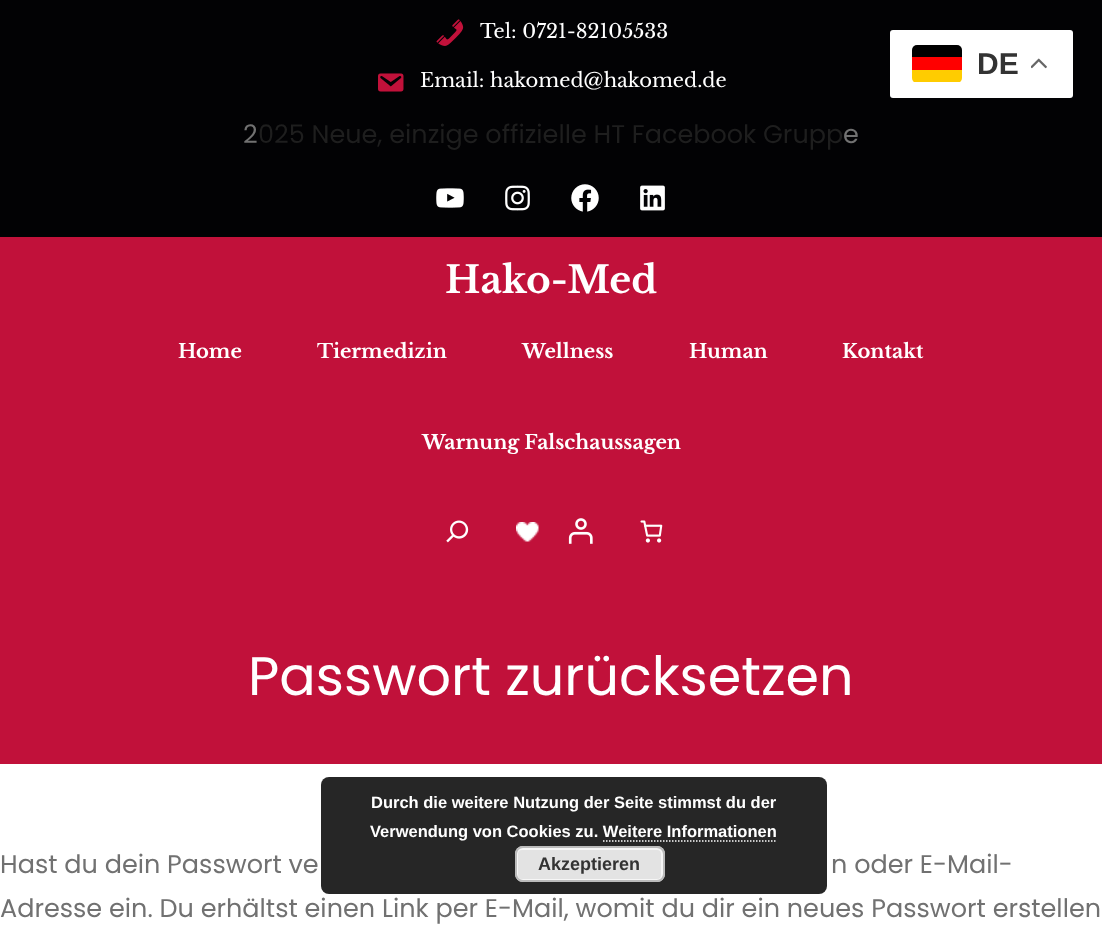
(async () => {
  const canvas = document.querySelector("canvas");
  canvas.width = 1102;
  canvas.height = 938;
  const ctx = canvas.getContext("2d");
  ctx.miterLimit = 4;
  ctx.fontKerning = "normal";
  async function loadImage(src) {
    const img = new Image();
    img.src = src;
    await img.decode();
    return img;
  }
  let path;

  ctx.fillStyle = "#ffffff";
  ctx.fillRect(0, 0, 1102, 938);
  ctx.fillStyle = "#020204";
  ctx.fillRect(0, 0, 1102, 237);
  ctx.drawImage(await loadImage("img/1.png"), 436, 19, 28, 27);
  ctx.drawImage(await loadImage("img/2.png"), 378, 73, 26, 19);
  ctx.drawImage(await loadImage("img/3.png"), 436, 188, 28, 20);
  ctx.drawImage(await loadImage("img/4.png"), 505, 185, 25, 26);
  ctx.drawImage(await loadImage("img/5.png"), 571, 184, 28, 28);
  ctx.drawImage(await loadImage("img/6.png"), 640, 185, 25, 26);
  ctx.fillStyle = "#c1113a";
  ctx.fillRect(0, 237, 1102, 527);
  ctx.drawImage(await loadImage("img/7.png"), 446, 520, 23, 23);
  ctx.drawImage(await loadImage("img/8.png"), 516, 522, 23, 20);
  ctx.drawImage(await loadImage("img/9.png"), 568, 518, 25, 26);
  ctx.drawImage(await loadImage("img/10.png"), 640, 520, 23, 23);
  ctx.fillStyle = "#ffffff";
  ctx.beginPath();
  ctx.roundRect(890, 30, 183, 68, 3);
  ctx.fill();
  ctx.save();
  ctx.beginPath();
  ctx.roundRect(912, 45, 50, 38, 5);
  ctx.clip();
  ctx.fillStyle = "#ffcc00";
  ctx.fillRect(912, 70, 50, 12);
  ctx.restore();
  ctx.fillStyle = "#000000";
  ctx.beginPath();
  ctx.roundRect(912, 45, 50, 12, [5, 5, 0, 0]);
  ctx.fill();
  ctx.fillStyle = "#ff0000";
  ctx.fillRect(912, 57, 50, 13);
  ctx.drawImage(await loadImage("img/11.png"), 1031, 58, 16, 11);
  ctx.fillStyle = "rgba(0, 0, 0, 0.85)";
  ctx.beginPath();
  ctx.roundRect(321, 777, 506, 117, 8);
  ctx.fill();
  path = new Path2D("M603 841H777");
  ctx.strokeStyle = "#ffffff";
  ctx.lineWidth = 1.5;
  ctx.setLineDash([1.5, 1.5]);
  ctx.stroke(path);
  ctx.fillStyle = "#e3e3e3";
  ctx.beginPath();
  ctx.roundRect(515, 846, 150, 36, 8);
  ctx.fill();
  ctx.beginPath();
  ctx.roundRect(517, 849, 145, 31, 5);
  ctx.strokeStyle = "#f6f6f6";
  ctx.lineWidth = 2;
  ctx.setLineDash([]);
  ctx.stroke();
  ctx.beginPath();
  ctx.roundRect(516, 847, 148, 34, 7);
  ctx.strokeStyle = "#bbbbbb";
  ctx.stroke();
  ctx.font = "19.5px Libre Baskerville";
  ctx.fillStyle = "#ffffff";
  ctx.fillText("Tel: 0721-82105533", 480, 38);
  ctx.fillText("Email: hakomed@hakomed.de", 420, 87);
  ctx.font = "25.5px Poppins";
  ctx.fillStyle = "#717171";
  ctx.fillText("2", 243, 143);
  ctx.fillStyle = "#1e1e1e";
  ctx.fillText("025 Neue, einzige offizielle HT Facebook Grupp", 258, 143);
  ctx.fillStyle = "#717171";
  ctx.fillText("e", 843, 143);
  ctx.font = "bold 37.5px Libre Baskerville";
  ctx.fillStyle = "#ffffff";
  ctx.fillText("Hako-Med", 445, 293);
  ctx.font = "bold 19.5px Libre Baskerville";
  for (const [text, x, y] of [
    ["Home", 178, 358],
    ["Tiermedizin", 317, 358],
    ["Wellness", 522, 358],
    ["Human", 689, 358],
    ["Kontakt", 842, 358],
    ["Warnung Falschaussagen", 422, 449],
  ]) {
    ctx.fillText(text, x, y);
  }
  ctx.font = "54px Poppins";
  ctx.fillText("Passwort zurücksetzen", 248, 695);
  ctx.font = "25.5px Poppins";
  ctx.fillStyle = "#717171";
  for (const [text, x, y] of [
    ["Hast du dein Passwort ve", 0, 873],
    ["n oder E-Mail-", 831, 873],
    ["Adresse ein. Du erhältst einen Link per E-Mail, womit du dir ein neues Passwort erstellen", 0, 917],
  ]) {
    ctx.fillText(text, x, y);
  }
  ctx.font = "bold 30px Liberation Sans";
  ctx.fillStyle = "#333333";
  ctx.fillText("DE", 977, 74);
  ctx.font = "bold 16.5px Liberation Sans";
  ctx.fillStyle = "#ffffff";
  ctx.fillText("Durch die weitere Nutzung der Seite stimmst du der", 371, 808);
  ctx.fillText("Verwendung von Cookies zu. Weitere Informationen", 370, 837);
  ctx.font = "bold 18px Liberation Sans";
  ctx.fillStyle = "#333333";
  ctx.fillText("Akzeptieren", 538, 870);
})();
